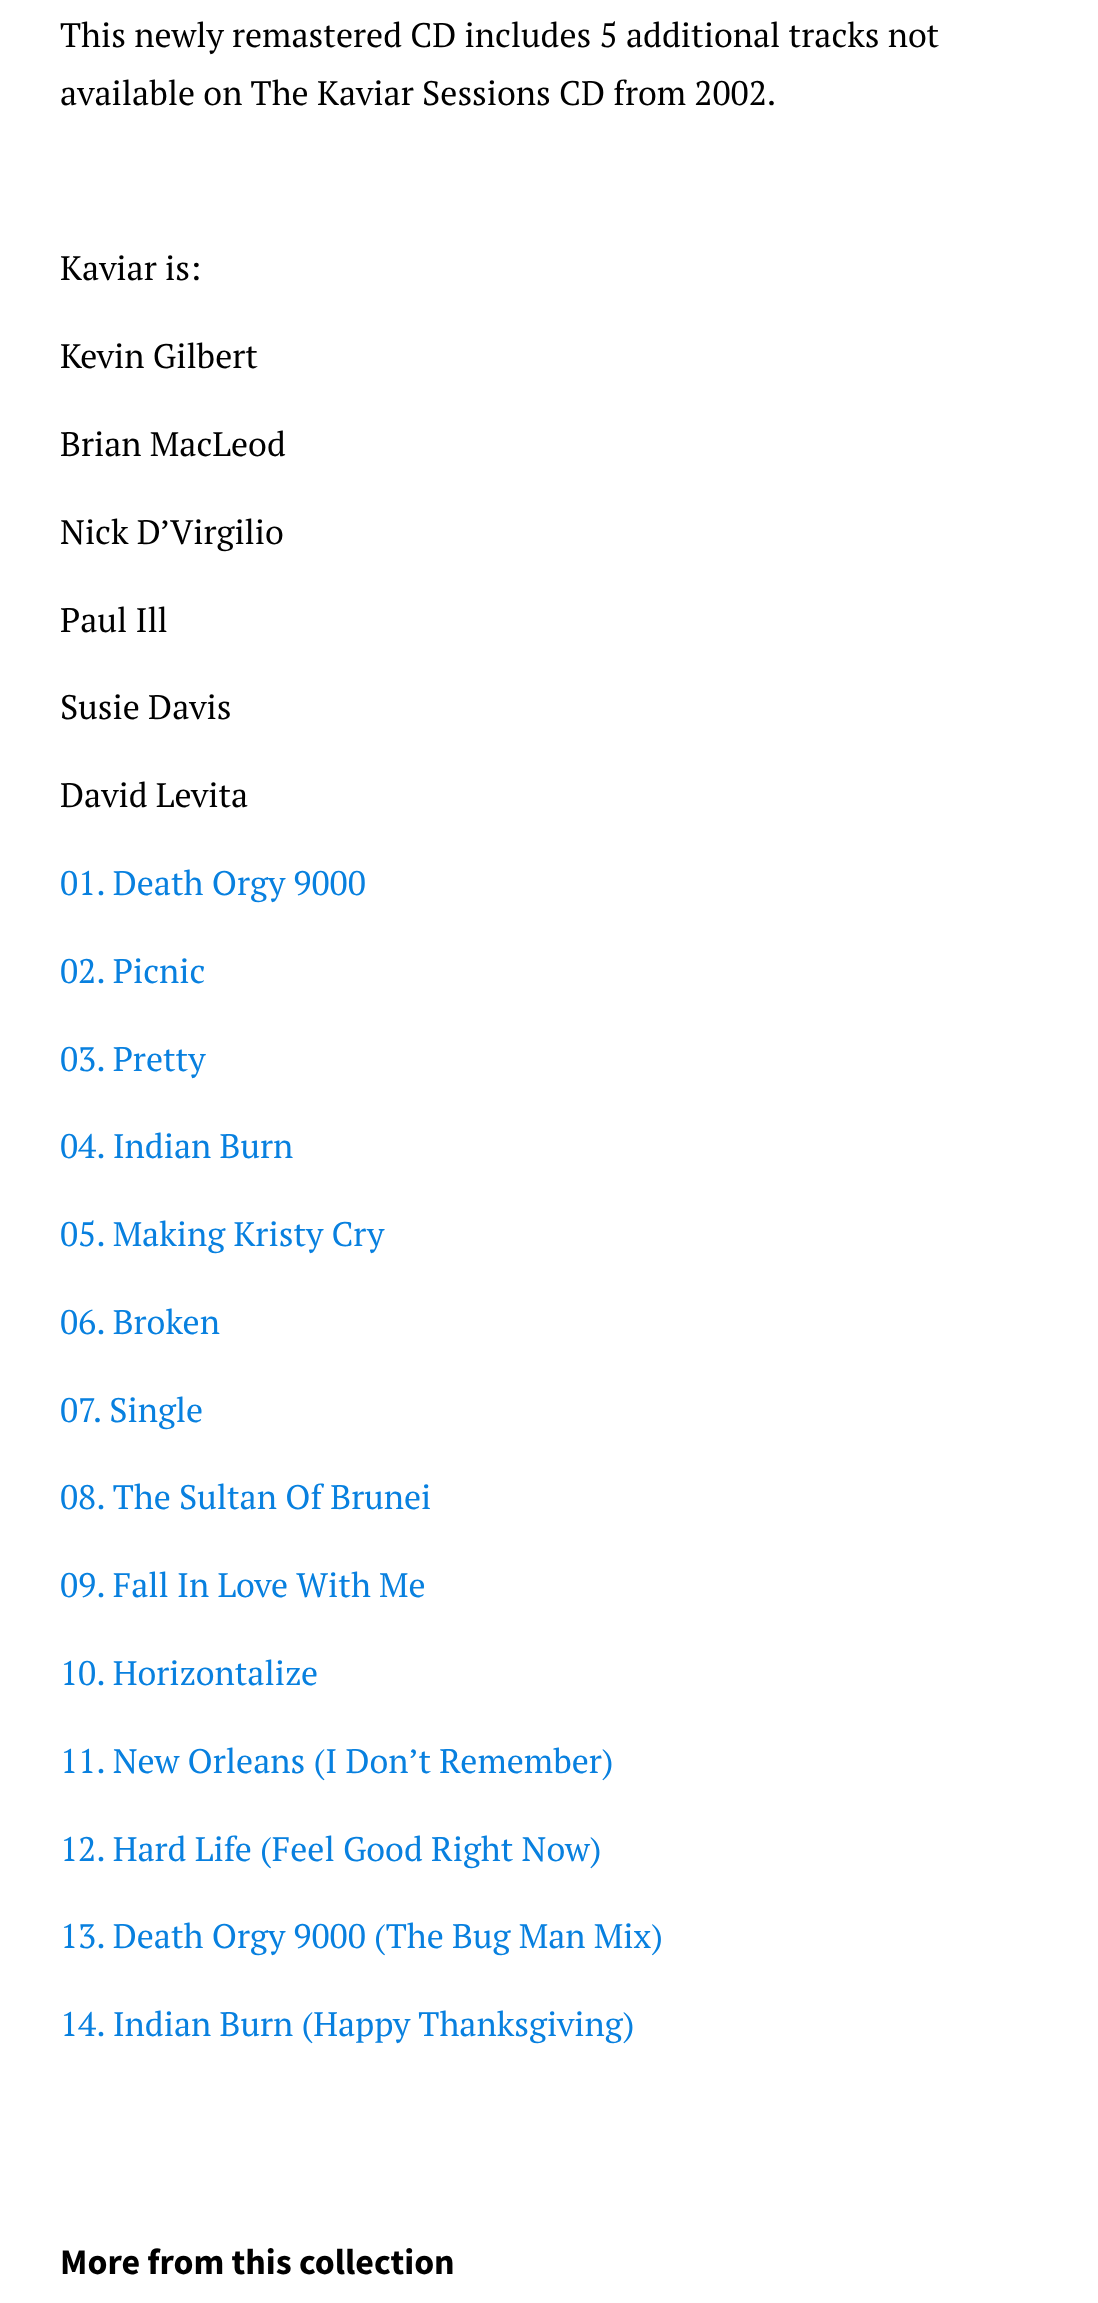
(async () => {
  const canvas = document.querySelector("canvas");
  canvas.width = 1098;
  canvas.height = 2303;
  const ctx = canvas.getContext("2d");
  ctx.miterLimit = 4;
  ctx.fontKerning = "normal";

  ctx.fillStyle = "#ffffff";
  ctx.fillRect(0, 0, 1098, 2303);
  ctx.font = "34px PT Serif";
  ctx.fillStyle = "#000000";
  for (const [text, x, y] of [
    ["This newly remastered CD includes 5 additional tracks not", 60, 47],
    ["available on The Kaviar Sessions CD from 2002.", 60, 105],
    ["Kaviar is:", 60, 280],
    ["Kevin Gilbert", 60, 368],
    ["Brian MacLeod", 60, 456],
    ["Nick D’Virgilio", 60, 544],
    ["Paul Ill", 60, 632],
    ["Susie Davis", 60, 719],
    ["David Levita", 60, 807],
  ]) {
    ctx.fillText(text, x, y);
  }
  ctx.fillStyle = "#0880df";
  for (const [text, x, y] of [
    ["01. Death Orgy 9000", 60, 895],
    ["02. Picnic", 60, 983],
    ["03. Pretty", 60, 1071],
    ["04. Indian Burn", 60, 1158],
    ["05. Making Kristy Cry", 60, 1246],
    ["06. Broken", 60, 1334],
    ["07. Single", 60, 1422],
    ["08. The Sultan Of Brunei", 60, 1509],
    ["09. Fall In Love With Me", 60, 1597],
    ["10. Horizontalize", 60, 1685],
    ["11. New Orleans (I Don’t Remember)", 60, 1773],
    ["12. Hard Life (Feel Good Right Now)", 60, 1861],
    ["13. Death Orgy 9000 (The Bug Man Mix)", 60, 1948],
    ["14. Indian Burn (Happy Thanksgiving)", 60, 2036],
  ]) {
    ctx.fillText(text, x, y);
  }
  ctx.font = "bold 36px Source Sans Pro";
  ctx.fillStyle = "#000000";
  ctx.fillText("More from this collection", 60, 2274);
})();
